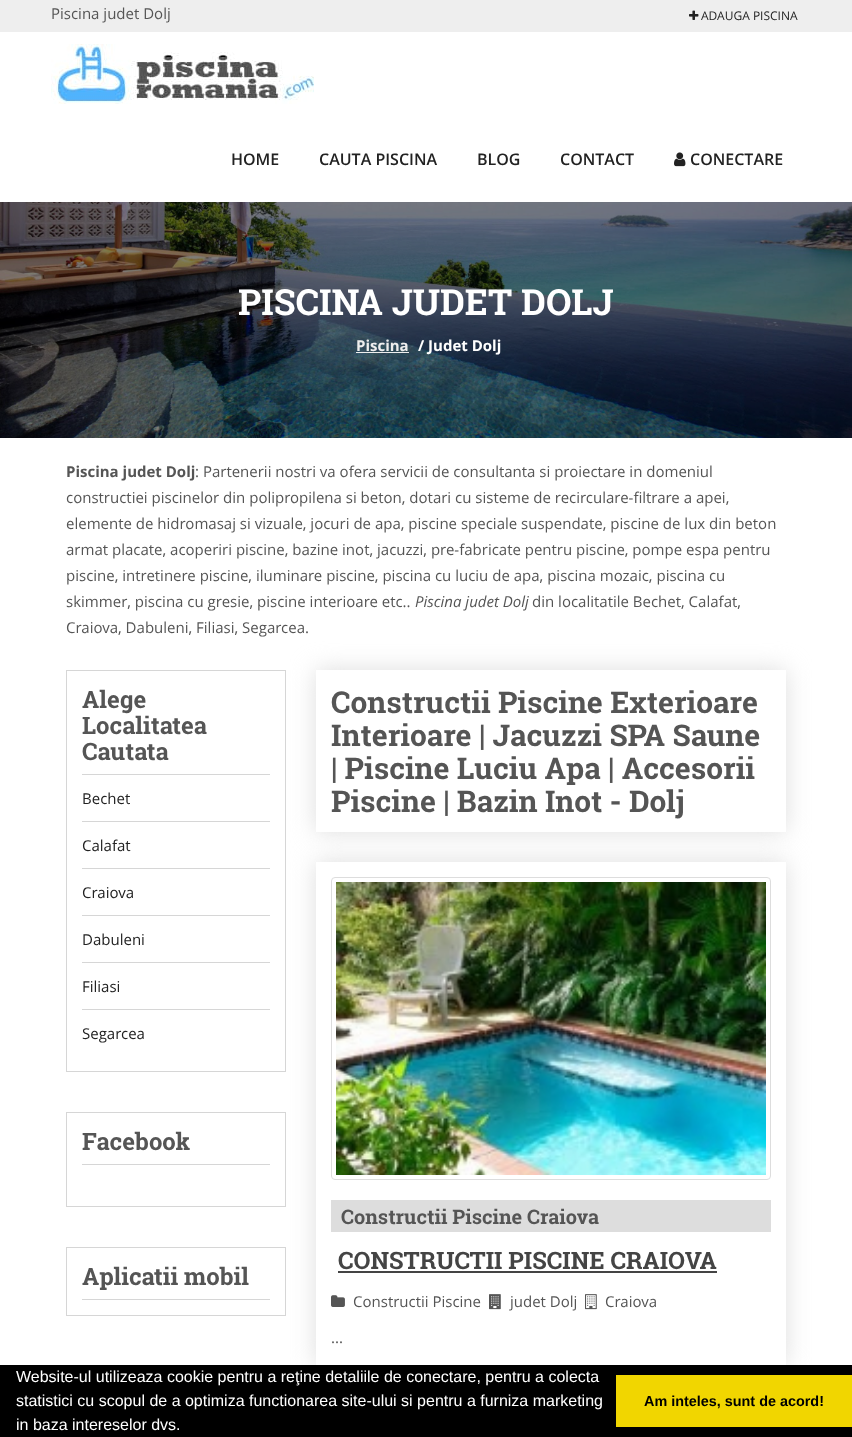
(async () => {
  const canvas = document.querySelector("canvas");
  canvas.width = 852;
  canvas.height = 1437;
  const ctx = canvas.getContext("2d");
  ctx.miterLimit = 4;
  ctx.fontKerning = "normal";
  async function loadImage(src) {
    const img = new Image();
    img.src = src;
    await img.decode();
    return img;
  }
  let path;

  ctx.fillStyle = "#ffffff";
  ctx.fillRect(0, 0, 852, 1437);
  ctx.fillStyle = "#eeeeee";
  ctx.fillRect(0, 0, 852, 32);
  ctx.drawImage(await loadImage("img/1.png"), 689, 10, 10, 10);
  ctx.drawImage(await loadImage("img/2.png"), 51, 44, 263, 60);
  ctx.drawImage(await loadImage("img/3.png"), 674, 152, 12, 15);
  ctx.drawImage(await loadImage("img/4.png"), 0, 202, 852, 236);
  ctx.fillRect(356, 352, 53, 1);
  ctx.strokeStyle = "#d6d6d6";
  ctx.strokeRect(66.5, 670.5, 219, 401);
  for (const [x, y, w, h, color] of [
    [82, 774, 188, 1, "#d6d6d6"],
    [82, 821, 188, 1, "#d6d6d6"],
    [82, 868, 188, 1, "#d6d6d6"],
    [82, 915, 188, 1, "#d6d6d6"],
    [82, 962, 188, 1, "#d6d6d6"],
    [82, 1009, 188, 1, "#d6d6d6"],
  ]) {
    ctx.fillStyle = color;
    ctx.fillRect(x, y, w, h);
  }
  ctx.strokeRect(66.5, 1112.5, 219, 94);
  ctx.fillRect(82, 1164, 188, 1);
  ctx.strokeRect(66.5, 1247.5, 219, 68);
  ctx.fillRect(82, 1299, 188, 1);
  ctx.save();
  path = new Path2D("M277 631H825V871H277ZM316 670H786V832H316Z");
  ctx.clip(path, "evenodd");
  ctx.fillStyle = "#dddddd";
  ctx.filter = "blur(12.5px)";
  ctx.beginPath();
  ctx.rect(316, 670, 470, 162);
  ctx.fill();
  ctx.filter = "none";
  ctx.restore();
  ctx.save();
  path = new Path2D("M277 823H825V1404H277ZM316 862H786V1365H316Z");
  ctx.clip(path, "evenodd");
  ctx.fillStyle = "#dddddd";
  ctx.filter = "blur(12.5px)";
  ctx.beginPath();
  ctx.rect(316, 862, 470, 503);
  ctx.fill();
  ctx.filter = "none";
  ctx.restore();
  ctx.beginPath();
  ctx.roundRect(331.5, 877.5, 439, 302, 3.5);
  ctx.strokeStyle = "#dddddd";
  ctx.stroke();
  ctx.drawImage(await loadImage("img/5.png"), 336, 882, 430, 293);
  ctx.fillStyle = "#dddddd";
  ctx.fillRect(331, 1200, 440, 32);
  ctx.fillStyle = "#444444";
  ctx.fillRect(338, 1271, 379, 2);
  ctx.drawImage(await loadImage("img/6.png"), 331, 1295, 14, 12);
  ctx.drawImage(await loadImage("img/7.png"), 489, 1294, 12, 16);
  ctx.drawImage(await loadImage("img/8.png"), 585, 1294, 12, 16);
  ctx.fillStyle = "#000000";
  ctx.fillRect(0, 1365, 852, 72);
  ctx.fillStyle = "#f1d600";
  ctx.fillRect(616, 1375, 236, 52);
  ctx.font = "15px Open Sans";
  ctx.fillStyle = "#555555";
  ctx.fillText("Piscina judet Dolj", 51, 19);
  ctx.font = "12px Open Sans";
  ctx.fillStyle = "#222222";
  ctx.fillText("ADAUGA PISCINA", 701, 20);
  ctx.font = "600 16px Open Sans";
  for (const [text, x, y] of [
    ["HOME", 231, 165],
    ["CAUTA PISCINA", 319, 165],
    ["BLOG", 477, 165],
    ["CONTACT", 560, 165],
    ["CONECTARE", 690, 165],
  ]) {
    ctx.fillText(text, x, y);
  }
  ctx.font = "bold 36px Roboto Slab";
  ctx.fillStyle = "#ffffff";
  ctx.fillText("PISCINA JUDET DOLJ", 238, 315);
  ctx.font = "bold 15px Open Sans";
  ctx.fillStyle = "#eeeeee";
  ctx.fillText("Piscina", 356, 351);
  ctx.fillStyle = "#ffffff";
  ctx.fillText("/ Judet Dolj", 418, 351);
  ctx.fillStyle = "#555555";
  ctx.fillText("Piscina judet Dolj", 66, 477);
  ctx.font = "15px Open Sans";
  for (const [text, x, y] of [
    [": Partenerii nostri va ofera servicii de consultanta si proiectare in domeniul", 195, 477],
    ["constructiei piscinelor din polipropilena si beton, dotari cu sisteme de recirculare-filtrare a apei,", 66, 503],
    ["elemente de hidromasaj si vizuale, jocuri de apa, piscine speciale suspendate, piscine de lux din beton", 66, 529],
    ["armat placate, acoperiri piscine, bazine inot, jacuzzi, pre-fabricate pentru piscine, pompe espa pentru", 66, 555],
    ["piscine, intretinere piscine, iluminare piscine, piscina cu luciu de apa, piscina mozaic, piscina cu", 66, 581],
    ["skimmer, piscina cu gresie, piscine interioare etc..", 66, 607],
  ]) {
    ctx.fillText(text, x, y);
  }
  ctx.font = "italic 15px Open Sans";
  ctx.fillText("Piscina judet Dolj", 415, 607);
  ctx.font = "15px Open Sans";
  ctx.fillText("din localitatile Bechet, Calafat,", 532, 607);
  ctx.fillText("Craiova, Dabuleni, Filiasi, Segarcea.", 66, 633);
  ctx.font = "bold 24px Roboto Slab";
  for (const [text, x, y] of [
    ["Alege", 82, 708],
    ["Localitatea", 82, 734],
    ["Cautata", 82, 760],
  ]) {
    ctx.fillText(text, x, y);
  }
  ctx.font = "15px Open Sans";
  ctx.fillStyle = "#222222";
  for (const [text, x, y] of [
    ["Bechet", 82, 804],
    ["Calafat", 82, 851],
    ["Craiova", 82, 898],
    ["Dabuleni", 82, 945],
    ["Filiasi", 82, 992],
    ["Segarcea", 82, 1039],
  ]) {
    ctx.fillText(text, x, y);
  }
  ctx.font = "bold 24px Roboto Slab";
  ctx.fillStyle = "#555555";
  ctx.fillText("Facebook", 82, 1150);
  ctx.fillText("Aplicatii mobil", 82, 1285);
  ctx.font = "bold 30px Roboto Slab";
  for (const [text, x, y] of [
    ["Constructii Piscine Exterioare", 331, 713],
    ["Interioare | Jacuzzi SPA Saune", 331, 746],
    ["| Piscine Luciu Apa | Accesorii", 331, 779],
    ["Piscine | Bazin Inot - Dolj", 331, 812],
  ]) {
    ctx.fillText(text, x, y);
  }
  ctx.font = "bold 20px Roboto Slab";
  ctx.fillText("Constructii Piscine Craiova", 341, 1224);
  ctx.font = "bold 24px Roboto Slab";
  ctx.fillStyle = "#444444";
  ctx.fillText("CONSTRUCTII PISCINE CRAIOVA", 338, 1269);
  ctx.font = "15px Open Sans";
  ctx.fillStyle = "#555555";
  for (const [text, x, y] of [
    ["Constructii Piscine", 353, 1307],
    ["judet Dolj", 510, 1307],
    ["Craiova", 605, 1307],
    ["...", 331, 1343],
  ]) {
    ctx.fillText(text, x, y);
  }
  ctx.font = "16px Liberation Sans";
  ctx.fillStyle = "#ffffff";
  for (const [text, x, y] of [
    ["Website-ul utilizeaza cookie pentru a reţine detaliile de conectare, pentru a colecta", 16, 1382],
    ["statistici cu scopul de a optimiza functionarea site-ului si pentru a furniza marketing", 16, 1406],
    ["in baza intereselor dvs.", 16, 1430],
  ]) {
    ctx.fillText(text, x, y);
  }
  ctx.font = "bold 14.4px Liberation Sans";
  ctx.fillStyle = "#000000";
  ctx.fillText("Am inteles, sunt de acord!", 644, 1406);
})();
